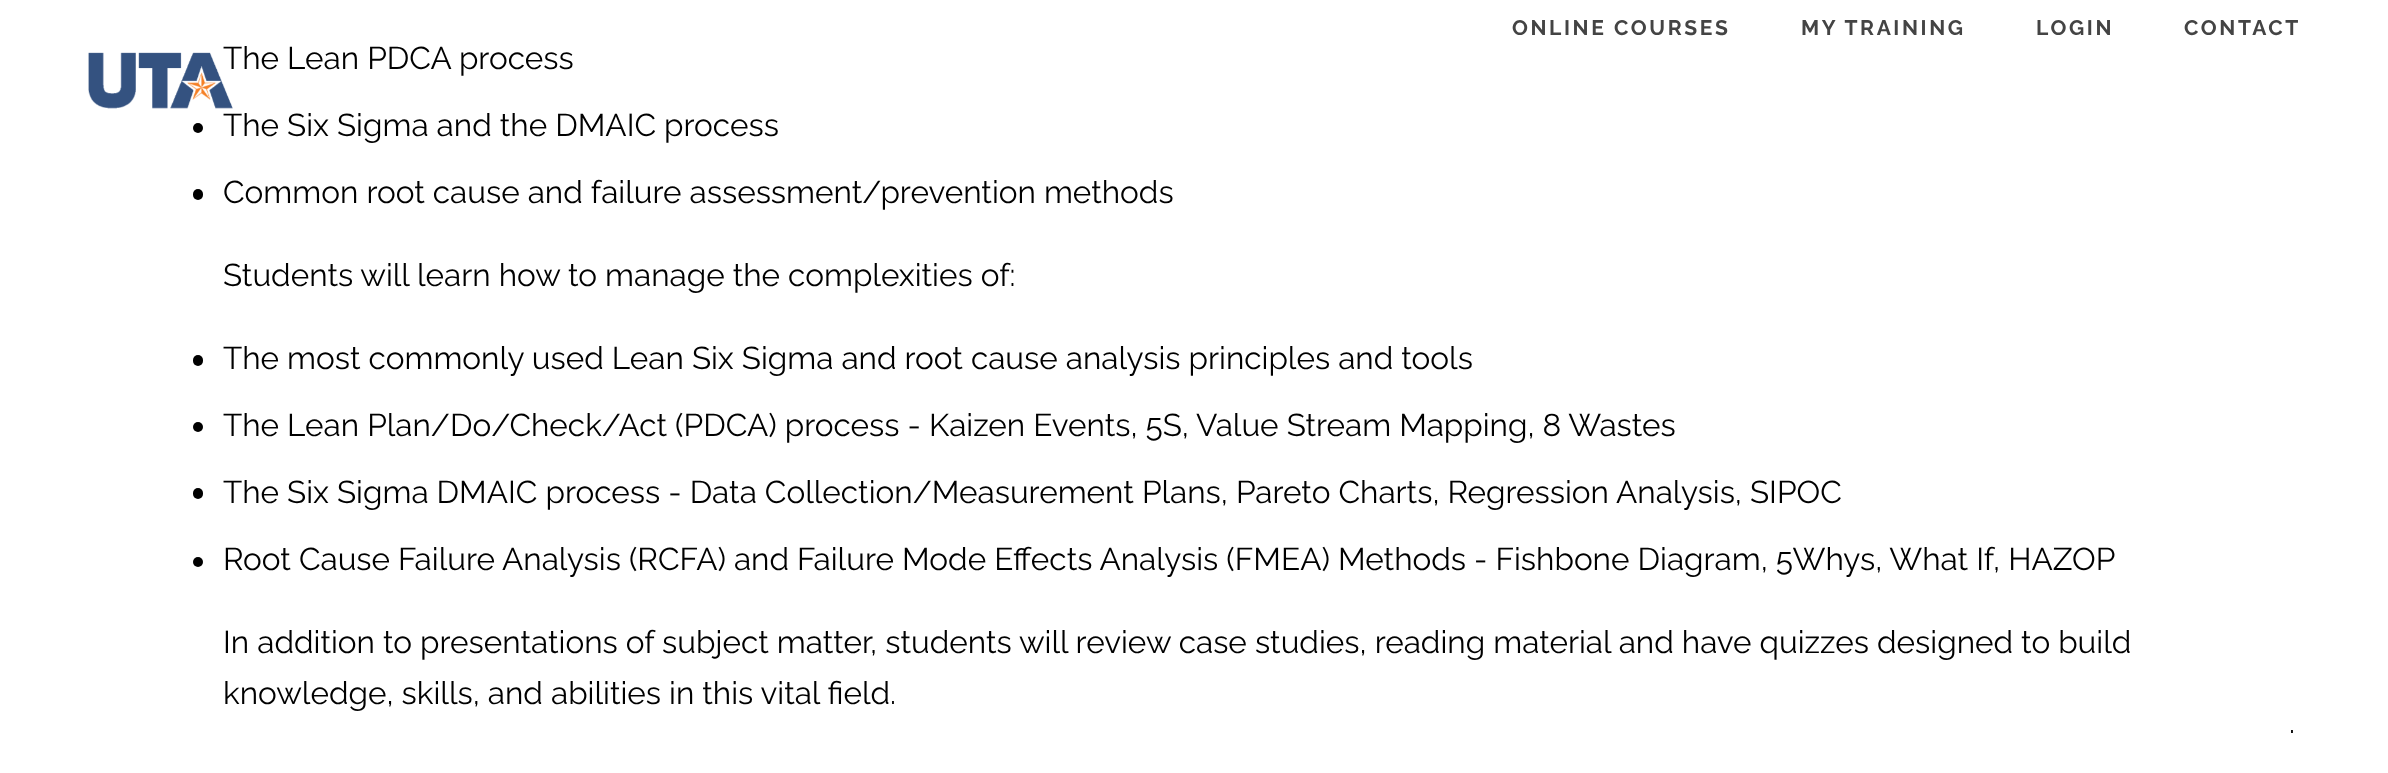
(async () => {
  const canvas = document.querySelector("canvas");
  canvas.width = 2388;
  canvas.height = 773;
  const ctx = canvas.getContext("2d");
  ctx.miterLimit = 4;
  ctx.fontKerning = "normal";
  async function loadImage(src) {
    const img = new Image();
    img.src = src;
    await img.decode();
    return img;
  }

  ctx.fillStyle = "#ffffff";
  ctx.fillRect(0, 0, 2388, 773);
  ctx.fillStyle = "#000000";
  ctx.beginPath();
  ctx.arc(198, 128, 5, 0, Math.PI * 2);
  ctx.fill();
  ctx.beginPath();
  ctx.roundRect(193, 189, 10, 11, 5);
  ctx.fill();
  ctx.beginPath();
  ctx.roundRect(193, 355, 10, 11, 5);
  ctx.fill();
  ctx.beginPath();
  ctx.arc(198, 427, 5, 0, Math.PI * 2);
  ctx.fill();
  ctx.beginPath();
  ctx.roundRect(193, 488, 10, 11, 5);
  ctx.fill();
  ctx.beginPath();
  ctx.arc(198, 562, 5, 0, Math.PI * 2);
  ctx.fill();
  ctx.letterSpacing = "2.6px";
  ctx.font = "bold 21px Raleway";
  ctx.fillStyle = "#444444";
  for (const [text, x, y] of [
    ["ONLINE COURSES", 1512, 35],
    ["MY TRAINING", 1801, 35],
    ["LOGIN", 2036, 35],
    ["CONTACT", 2184, 35],
  ]) {
    ctx.fillText(text, x, y);
  }
  ctx.letterSpacing = "0px";
  ctx.font = "31.5px Raleway";
  ctx.fillStyle = "#000000";
  ctx.fillText("The Lean PDCA process", 223, 69);
  ctx.drawImage(await loadImage("img/1.png"), 88, 52, 145, 57);
  for (const [text, x, y] of [
    ["The Six Sigma and the DMAIC process", 223, 136],
    ["Common root cause and failure assessment/prevention methods", 223, 203],
    ["Students will learn how to manage the complexities of:", 223, 286],
    ["The most commonly used Lean Six Sigma and root cause analysis principles and tools", 223, 369],
    ["The Lean Plan/Do/Check/Act (PDCA) process - Kaizen Events, 5S, Value Stream Mapping, 8 Wastes", 223, 436],
    ["The Six Sigma DMAIC process - Data Collection/Measurement Plans, Pareto Charts, Regression Analysis, SIPOC", 223, 503],
    ["Root Cause Failure Analysis (RCFA) and Failure Mode Effects Analysis (FMEA) Methods - Fishbone Diagram, 5Whys, What If, HAZOP", 223, 570],
    ["In addition to presentations of subject matter, students will review case studies, reading material and have quizzes designed to build", 223, 653],
    ["knowledge, skills, and abilities in this vital field.", 223, 704],
    [".", 2289, 733],
  ]) {
    ctx.fillText(text, x, y);
  }
})();
